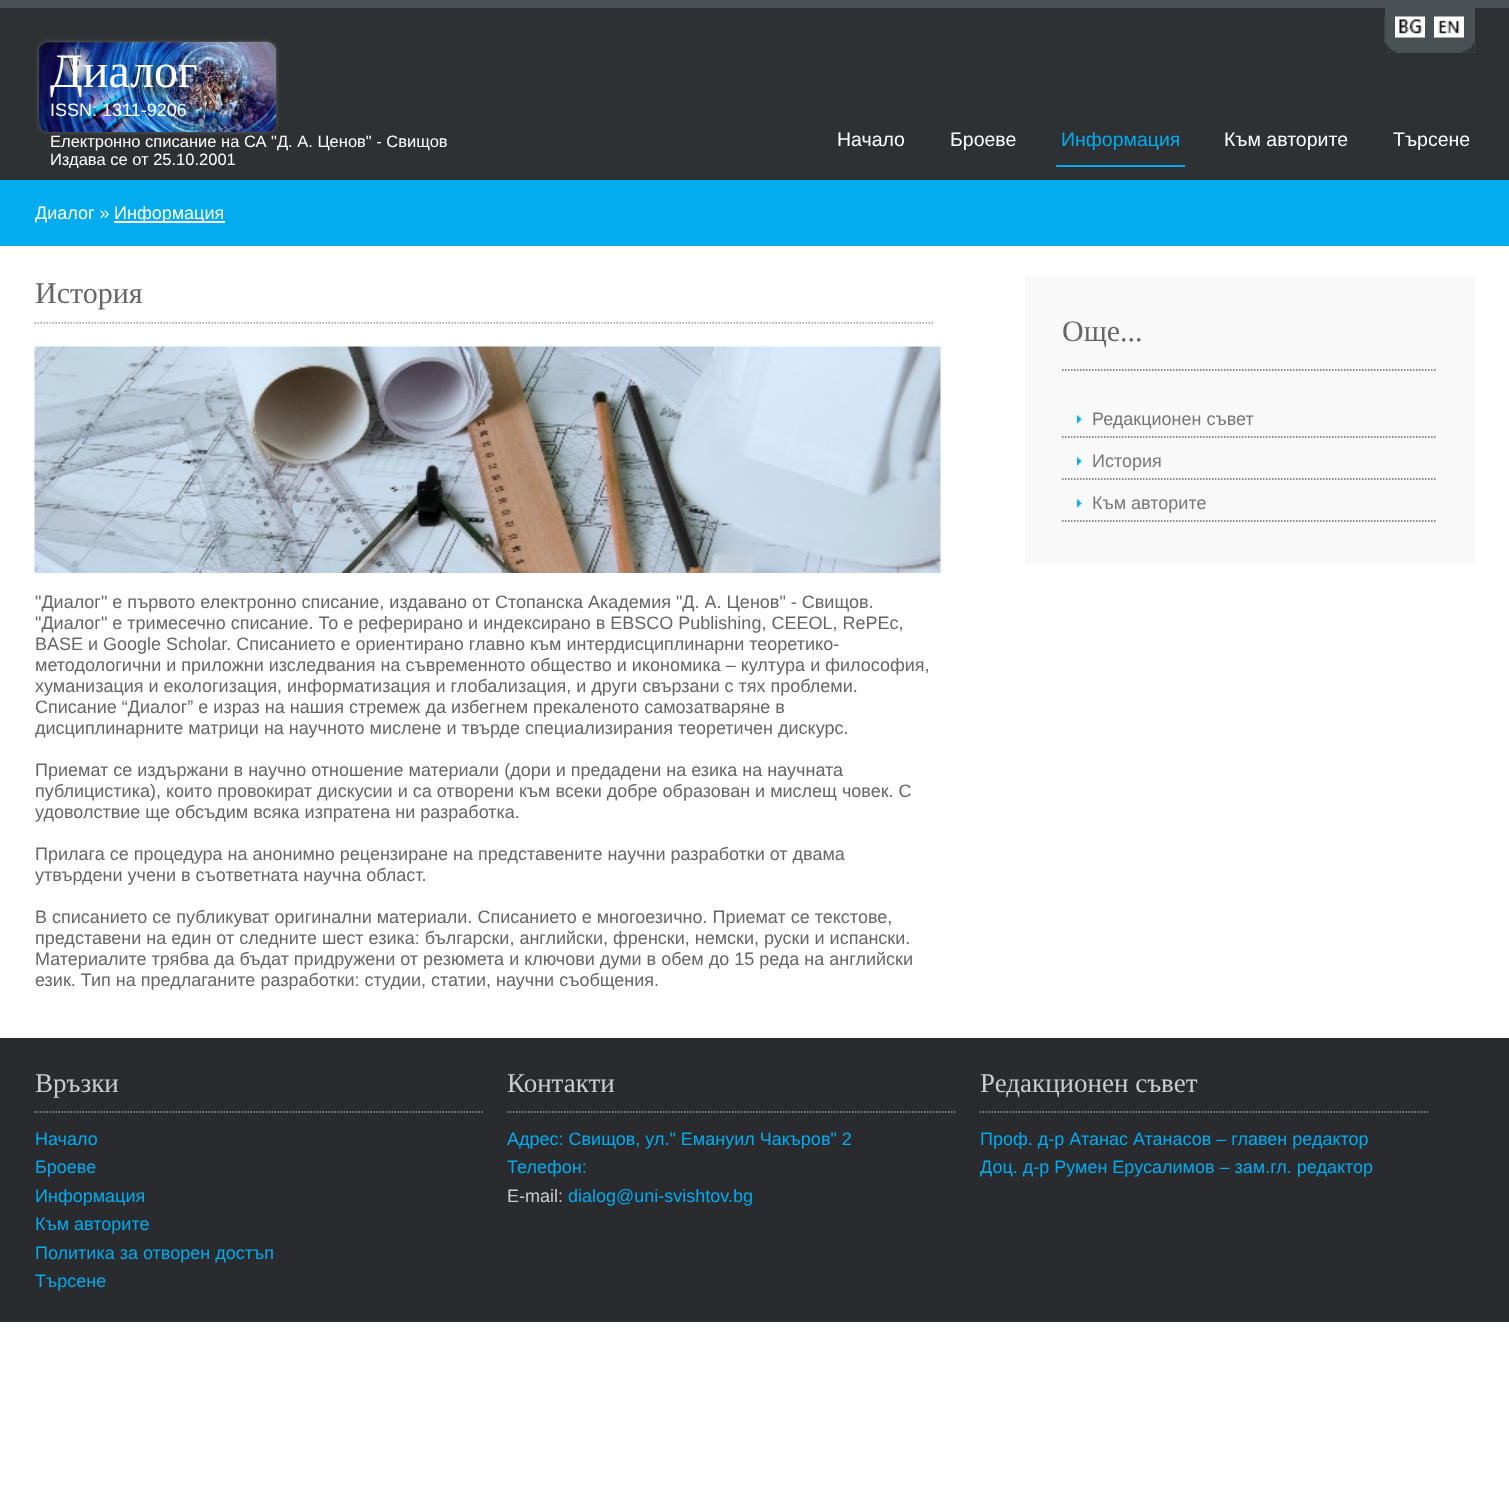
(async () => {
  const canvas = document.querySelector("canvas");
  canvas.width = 1509;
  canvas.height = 1501;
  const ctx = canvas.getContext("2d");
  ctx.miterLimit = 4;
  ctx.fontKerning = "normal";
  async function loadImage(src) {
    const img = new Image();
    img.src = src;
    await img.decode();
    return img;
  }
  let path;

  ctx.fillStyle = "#ffffff";
  ctx.fillRect(0, 0, 1509, 1501);
  for (const [x, y, w, h, color] of [
    [0, 8, 1509, 172, "#2d3134"],
    [0, 0, 1509, 8, "#4a5155"],
    [1385, 8, 90, 45, "#4a5155"],
  ]) {
    ctx.fillStyle = color;
    ctx.fillRect(x, y, w, h);
  }
  ctx.drawImage(await loadImage("img/1.png"), 1384, 16, 13, 37);
  ctx.drawImage(await loadImage("img/2.png"), 1395, 16, 30, 22);
  ctx.drawImage(await loadImage("img/3.png"), 1462, 43, 13, 10);
  ctx.drawImage(await loadImage("img/4.png"), 1434, 16, 30, 22);
  ctx.fillStyle = "#666666";
  ctx.filter = "blur(2px)";
  ctx.beginPath();
  ctx.roundRect(39, 42, 237, 90, 9);
  ctx.fill();
  ctx.filter = "none";
  ctx.drawImage(await loadImage("img/5.png"), 39, 42, 237, 90);
  for (const [x, y, w, h, color] of [
    [1056, 165, 129, 2, "#02acee"],
    [0, 180, 1509, 66, "#02acee"],
    [114, 221, 111, 2, "#ffffff"],
  ]) {
    ctx.fillStyle = color;
    ctx.fillRect(x, y, w, h);
  }
  path = new Path2D("M34.5 323H934.5");
  ctx.strokeStyle = "#999999";
  ctx.lineWidth = 1.5;
  ctx.setLineDash([1.5, 1.5]);
  ctx.stroke(path);
  ctx.drawImage(await loadImage("img/6.png"), 34, 346, 907, 227);
  ctx.fillStyle = "#f9f9f9";
  ctx.fillRect(1025, 276, 450, 288);
  path = new Path2D("M1062 370H1437");
  ctx.strokeStyle = "#666666";
  ctx.stroke(path);
  ctx.drawImage(await loadImage("img/7.png"), 1077, 415, 5, 8);
  path = new Path2D("M1062 437H1437");
  ctx.stroke(path);
  ctx.drawImage(await loadImage("img/7.png"), 1077, 457, 5, 8);
  path = new Path2D("M1062 479H1437");
  ctx.stroke(path);
  ctx.drawImage(await loadImage("img/7.png"), 1077, 499, 5, 8);
  path = new Path2D("M1062 521H1437");
  ctx.stroke(path);
  ctx.fillStyle = "#2a2b2f";
  ctx.fillRect(0, 1038, 1509, 284);
  path = new Path2D("M34.5 1112H484.5");
  ctx.strokeStyle = "#999999";
  ctx.stroke(path);
  path = new Path2D("M507 1112H957");
  ctx.stroke(path);
  path = new Path2D("M979.5 1112H1429.5");
  ctx.stroke(path);
  ctx.save();
  ctx.beginPath();
  ctx.rect(50, 44, 495, 124);
  ctx.clip();
  ctx.font = "48px Liberation Serif";
  ctx.fillStyle = "#ffffff";
  ctx.fillText("Диалог", 50, 87);
  ctx.restore();
  ctx.font = "18px Liberation Sans";
  ctx.fillStyle = "#ffffff";
  ctx.fillText("ISSN: 1311-9206", 50, 116);
  ctx.font = "16.5px Liberation Sans";
  ctx.fillText("Електронно списание на СА \"Д. А. Ценов\" - Свищов", 50, 147);
  ctx.save();
  ctx.beginPath();
  ctx.rect(50, 44, 495, 124);
  ctx.clip();
  ctx.fillText("Издава се от 25.10.2001", 50, 165);
  ctx.restore();
  ctx.font = "19.5px Liberation Sans";
  ctx.fillText("Начало", 837, 146);
  ctx.fillText("Броеве", 950, 146);
  ctx.fillStyle = "#02acee";
  ctx.fillText("Информация", 1061, 146);
  ctx.fillStyle = "#ffffff";
  ctx.fillText("Към авторите", 1224, 146);
  ctx.fillText("Търсене", 1393, 146);
  ctx.font = "18px Liberation Sans";
  ctx.fillText("Диалог »", 35, 219);
  ctx.fillText("Информация", 114, 219);
  ctx.font = "30px Liberation Serif";
  ctx.fillStyle = "#666666";
  ctx.fillText("История", 35, 303);
  ctx.font = "18px Liberation Sans";
  for (const [text, x, y] of [
    ["\"Диалог\" е първото електронно списание, издавано от Стопанска Академия \"Д. А. Ценов\" - Свищов.", 35, 608],
    ["\"Диалог\" е тримесечно списание. То е реферирано и индексирано в EBSCO Publishing, CEEOL, RePEc,", 35, 629],
    ["BASE и Google Scholar. Списанието е ориентирано главно към интердисциплинарни теоретико-", 35, 650],
    ["методологични и приложни изследвания на съвременното общество и икономика – култура и философия,", 35, 671],
    ["хуманизация и екологизация, информатизация и глобализация, и други свързани с тях проблеми.", 35, 692],
    ["Списание “Диалог” е израз на нашия стремеж да избегнем прекаленото самозатваряне в", 35, 713],
    ["дисциплинарните матрици на научното мислене и твърде специализирания теоретичен дискурс.", 35, 734],
    ["Приемат се издържани в научно отношение материали (дори и предадени на езика на научната", 35, 776],
    ["публицистика), които провокират дискусии и са отворени към всеки добре образован и мислещ човек. С", 35, 797],
    ["удоволствие ще обсъдим всяка изпратена ни разработка.", 35, 818],
    ["Прилага се процедура на анонимно рецензиране на представените научни разработки от двама", 35, 860],
    ["утвърдени учени в съответната научна област.", 35, 881],
    ["В списанието се публикуват оригинални материали. Списанието е многоезично. Приемат се текстове,", 35, 923],
    ["представени на един от следните шест езика: български, английски, френски, немски, руски и испански.", 35, 944],
    ["Материалите трябва да бъдат придружени от резюмета и ключови думи в обем до 15 реда на английски", 35, 965],
    ["език. Тип на предлаганите разработки: студии, статии, научни съобщения.", 35, 986],
  ]) {
    ctx.fillText(text, x, y);
  }
  ctx.font = "30px Liberation Serif";
  ctx.fillText("Още...", 1062, 341);
  ctx.font = "18px Liberation Sans";
  ctx.fillStyle = "#777777";
  for (const [text, x, y] of [
    ["Редакционен съвет", 1092, 425],
    ["История", 1092, 467],
    ["Към авторите", 1092, 509],
  ]) {
    ctx.fillText(text, x, y);
  }
  ctx.font = "27px Liberation Serif";
  ctx.fillStyle = "#cccccc";
  ctx.fillText("Връзки", 35, 1092);
  ctx.font = "18px Liberation Sans";
  ctx.fillStyle = "#02acee";
  for (const [text, x, y] of [
    ["Начало", 35, 1145],
    ["Броеве", 35, 1173],
    ["Информация", 35, 1202],
    ["Към авторите", 35, 1230],
    ["Политика за отворен достъп", 35, 1259],
    ["Търсене", 35, 1287],
  ]) {
    ctx.fillText(text, x, y);
  }
  ctx.font = "27px Liberation Serif";
  ctx.fillStyle = "#cccccc";
  ctx.fillText("Контакти", 507, 1092);
  ctx.font = "18px Liberation Sans";
  ctx.fillStyle = "#02acee";
  ctx.fillText("Адрес: Свищов, ул.\" Емануил Чакъров\" 2", 507, 1145);
  ctx.fillText("Телефон:", 507, 1173);
  ctx.fillStyle = "#cccccc";
  ctx.fillText("E-mail:", 507, 1202);
  ctx.fillStyle = "#02acee";
  ctx.fillText("dialog@uni-svishtov.bg", 568, 1202);
  ctx.font = "27px Liberation Serif";
  ctx.fillStyle = "#cccccc";
  ctx.fillText("Редакционен съвет", 980, 1092);
  ctx.font = "18px Liberation Sans";
  ctx.fillStyle = "#02acee";
  ctx.fillText("Проф. д-р Атанас Атанасов – главен редактор", 980, 1145);
  ctx.fillText("Доц. д-р Румен Ерусалимов – зам.гл. редактор", 980, 1173);
})();
